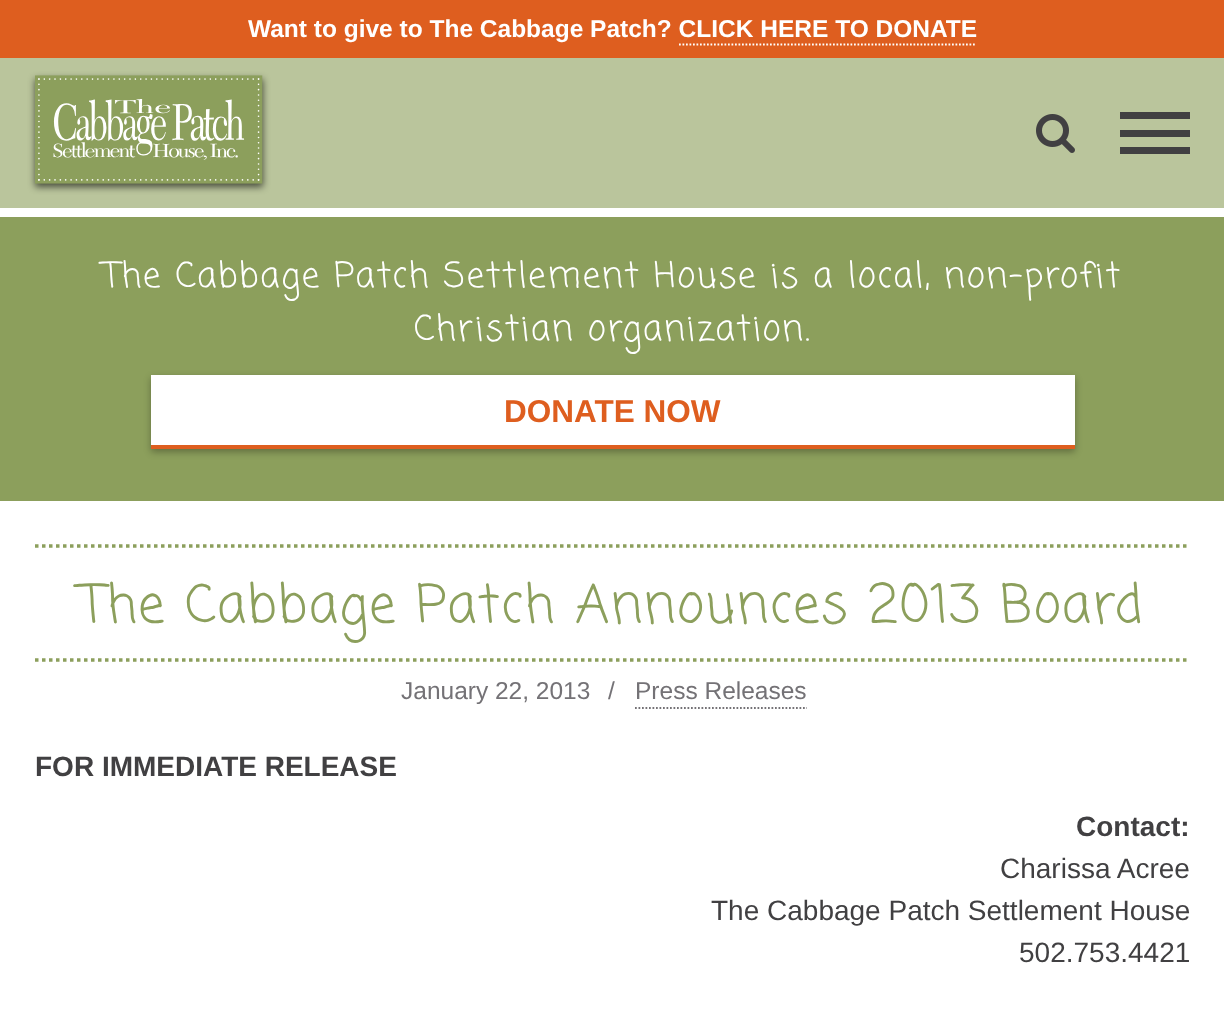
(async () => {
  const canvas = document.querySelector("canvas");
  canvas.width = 1224;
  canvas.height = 1009;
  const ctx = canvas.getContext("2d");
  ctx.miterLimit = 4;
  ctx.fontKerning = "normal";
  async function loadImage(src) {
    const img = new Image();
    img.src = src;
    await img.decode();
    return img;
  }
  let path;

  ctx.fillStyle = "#ffffff";
  ctx.fillRect(0, 0, 1224, 1009);
  ctx.fillStyle = "#de5e1f";
  ctx.fillRect(0, 0, 1224, 58);
  path = new Path2D("M679 44.5H976.5");
  ctx.strokeStyle = "#ffffff";
  ctx.lineWidth = 1.8;
  ctx.setLineDash([1.75, 1.75]);
  ctx.stroke(path);
  ctx.fillStyle = "#bac59c";
  ctx.fillRect(0, 58, 1224, 150);
  ctx.fillStyle = "rgba(0, 0, 0, 0.6)";
  ctx.filter = "blur(3.5px)";
  ctx.beginPath();
  ctx.rect(35, 79, 228, 108);
  ctx.fill();
  ctx.filter = "none";
  ctx.drawImage(await loadImage("img/1.png"), 35, 75, 228, 109);
  ctx.drawImage(await loadImage("img/2.png"), 1036, 114, 39, 39);
  for (const [x, y, w, h, color] of [
    [1120, 112, 70, 7, "#414042"],
    [1120, 130, 70, 7, "#414042"],
    [1120, 147, 70, 7, "#414042"],
    [0, 217, 1224, 284, "#8c9f5c"],
  ]) {
    ctx.fillStyle = color;
    ctx.fillRect(x, y, w, h);
  }
  ctx.fillStyle = "rgba(0, 0, 0, 0.3)";
  ctx.filter = "blur(3.5px)";
  ctx.beginPath();
  ctx.rect(151, 378, 924, 74);
  ctx.fill();
  ctx.filter = "none";
  ctx.fillStyle = "#ffffff";
  ctx.fillRect(151, 375, 924, 70);
  ctx.fillStyle = "#de5e1f";
  ctx.fillRect(151, 445, 924, 4);
  path = new Path2D("M35 546H1190");
  ctx.strokeStyle = "#8c9f5c";
  ctx.lineWidth = 3.5;
  ctx.setLineDash([3.5, 3.5]);
  ctx.stroke(path);
  path = new Path2D("M35 660H1190");
  ctx.stroke(path);
  path = new Path2D("M635 708H807");
  ctx.strokeStyle = "#747276";
  ctx.lineWidth = 1.8;
  ctx.setLineDash([1.75, 1.75]);
  ctx.stroke(path);
  ctx.font = "bold 24.5px Liberation Sans";
  ctx.fillStyle = "#ffffff";
  ctx.fillText("Want to give to The Cabbage Patch? CLICK HERE TO DONATE", 248, 37);
  ctx.letterSpacing = "1.75px";
  ctx.font = "35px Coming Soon";
  ctx.fillText("The Cabbage Patch Settlement House is a local, non-profit", 103, 287);
  ctx.fillText("Christian organization.", 414, 340);
  ctx.letterSpacing = "0px";
  ctx.font = "bold 31.5px Liberation Sans";
  ctx.fillStyle = "#de5e1f";
  ctx.fillText("DONATE NOW", 504, 422);
  ctx.letterSpacing = "1.75px";
  ctx.font = "52.5px Coming Soon";
  ctx.fillStyle = "#8c9f5c";
  ctx.fillText("The Cabbage Patch Announces 2013 Board", 80, 622);
  ctx.letterSpacing = "0px";
  ctx.font = "24.5px Liberation Sans";
  ctx.fillStyle = "#747276";
  for (const [text, x, y] of [
    ["January 22, 2013", 401, 699],
    ["/", 608, 699],
    ["Press Releases", 635, 699],
  ]) {
    ctx.fillText(text, x, y);
  }
  ctx.font = "bold 28px Liberation Sans";
  ctx.fillStyle = "#414042";
  ctx.fillText("FOR IMMEDIATE RELEASE", 35, 776);
  ctx.fillText("Contact:", 1076, 836);
  ctx.font = "28px Liberation Sans";
  for (const [text, x, y] of [
    ["Charissa Acree", 1000, 878],
    ["The Cabbage Patch Settlement House", 711, 920],
    ["502.753.4421", 1019, 962],
  ]) {
    ctx.fillText(text, x, y);
  }
})();
